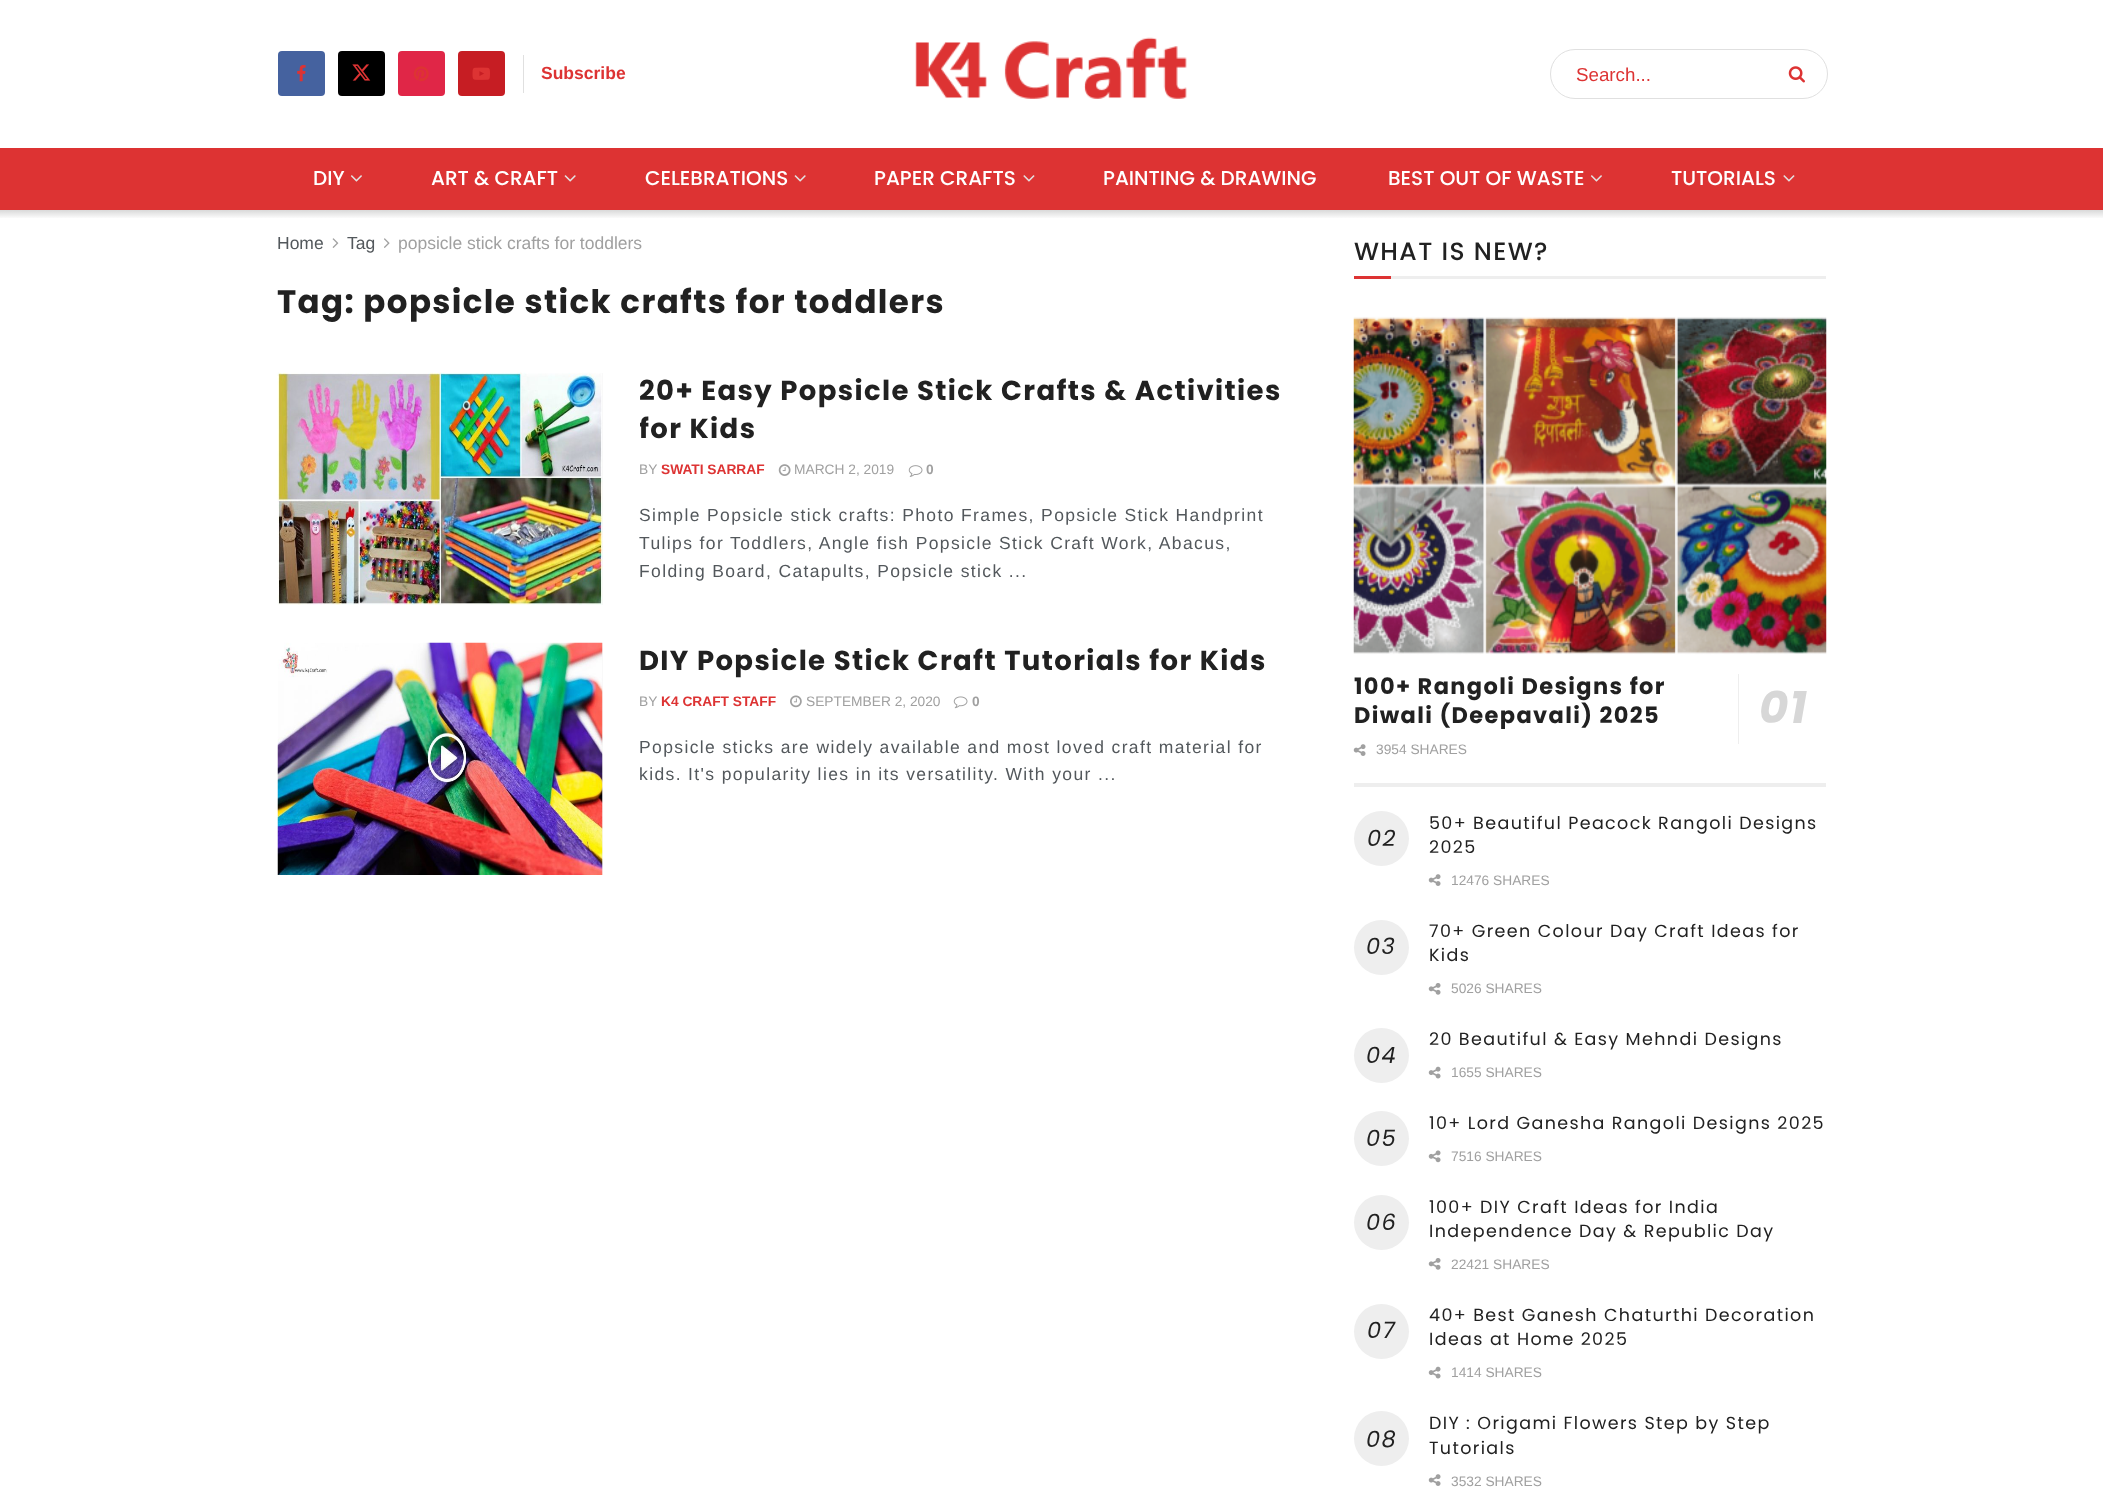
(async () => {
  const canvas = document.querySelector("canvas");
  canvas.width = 2103;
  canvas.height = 1512;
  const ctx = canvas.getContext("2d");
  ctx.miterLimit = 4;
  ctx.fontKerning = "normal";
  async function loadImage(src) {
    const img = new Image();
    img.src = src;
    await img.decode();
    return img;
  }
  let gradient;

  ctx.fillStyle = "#ffffff";
  ctx.fillRect(0, 0, 2103, 1512);
  ctx.fillStyle = "#45629f";
  ctx.beginPath();
  ctx.roundRect(278, 51, 47, 45, 4);
  ctx.fill();
  ctx.drawImage(await loadImage("img/1.png"), 297, 65, 9, 17);
  ctx.fillStyle = "#000000";
  ctx.beginPath();
  ctx.roundRect(338, 51, 47, 45, 4);
  ctx.fill();
  ctx.drawImage(await loadImage("img/2.png"), 352, 64, 19, 17);
  ctx.fillStyle = "#e02647";
  ctx.beginPath();
  ctx.roundRect(398, 51, 47, 45, 4);
  ctx.fill();
  ctx.drawImage(await loadImage("img/3.png"), 413, 66, 16, 16);
  ctx.fillStyle = "#c61d23";
  ctx.beginPath();
  ctx.roundRect(458, 51, 47, 45, 4);
  ctx.fill();
  ctx.drawImage(await loadImage("img/4.png"), 472, 67, 18, 13);
  ctx.fillStyle = "#e0e0e0";
  ctx.fillRect(523, 55, 1, 38);
  ctx.drawImage(await loadImage("img/5.png"), 915, 37, 272, 62);
  ctx.beginPath();
  ctx.roundRect(1550.5, 49.5, 277, 49, 24.5);
  ctx.strokeStyle = "#e0e0e0";
  ctx.stroke();
  ctx.drawImage(await loadImage("img/6.png"), 1788, 66, 17, 17);
  ctx.fillStyle = "#dd3333";
  ctx.fillRect(0, 148, 2103, 62);
  ctx.drawImage(await loadImage("img/7.png"), 350, 175, 12, 7);
  ctx.drawImage(await loadImage("img/8.png"), 564, 175, 12, 7);
  ctx.drawImage(await loadImage("img/8.png"), 794, 175, 12, 7);
  ctx.drawImage(await loadImage("img/9.png"), 1023, 175, 12, 7);
  ctx.drawImage(await loadImage("img/7.png"), 1590, 175, 12, 7);
  ctx.drawImage(await loadImage("img/9.png"), 1783, 175, 12, 7);
  gradient = ctx.createLinearGradient(1052, 210, 1052, 219);
  gradient.addColorStop(0, "#d9d9d9");
  gradient.addColorStop(1, "#ffffff");
  ctx.fillStyle = gradient;
  ctx.fillRect(0, 210, 2103, 8);
  ctx.drawImage(await loadImage("img/10.png"), 332, 238, 7, 10);
  ctx.drawImage(await loadImage("img/11.png"), 384, 238, 6, 10);
  ctx.fillStyle = "#f7f7f7";
  ctx.fillRect(602, 373, 1, 232);
  ctx.drawImage(await loadImage("img/12.png"), 277, 372, 326, 233);
  ctx.drawImage(await loadImage("img/13.png"), 778, 464, 13, 12);
  ctx.drawImage(await loadImage("img/14.png"), 908, 465, 15, 12);
  ctx.fillRect(602, 643, 1, 232);
  ctx.drawImage(await loadImage("img/15.png"), 277, 642, 326, 233);
  ctx.drawImage(await loadImage("img/16.png"), 790, 695, 12, 13);
  ctx.drawImage(await loadImage("img/17.png"), 953, 696, 15, 13);
  for (const [x, y, w, h, color] of [
    [1391, 276, 435, 3, "#eeeeee"],
    [1354, 276, 37, 3, "#dd3333"],
    [1354, 783, 472, 4, "#eeeeee"],
  ]) {
    ctx.fillStyle = color;
    ctx.fillRect(x, y, w, h);
  }
  ctx.drawImage(await loadImage("img/18.png"), 1353, 316, 474, 339);
  ctx.fillRect(1738, 674, 1, 70);
  ctx.drawImage(await loadImage("img/19.png"), 1353, 744, 13, 12);
  ctx.beginPath();
  ctx.arc(1381.5, 838.5, 27.5, 0, Math.PI * 2);
  ctx.fill();
  ctx.drawImage(await loadImage("img/19.png"), 1428, 874, 13, 12);
  ctx.beginPath();
  ctx.arc(1381.5, 947.5, 27.5, 0, Math.PI * 2);
  ctx.fill();
  ctx.drawImage(await loadImage("img/20.png"), 1428, 983, 13, 12);
  ctx.beginPath();
  ctx.arc(1381.5, 1055.5, 27.5, 0, Math.PI * 2);
  ctx.fill();
  ctx.drawImage(await loadImage("img/21.png"), 1428, 1066, 13, 13);
  ctx.beginPath();
  ctx.arc(1381.5, 1138.5, 27.5, 0, Math.PI * 2);
  ctx.fill();
  ctx.drawImage(await loadImage("img/22.png"), 1428, 1150, 13, 13);
  ctx.beginPath();
  ctx.arc(1381.5, 1222.5, 27.5, 0, Math.PI * 2);
  ctx.fill();
  ctx.drawImage(await loadImage("img/20.png"), 1428, 1258, 13, 12);
  ctx.beginPath();
  ctx.arc(1381.5, 1331.5, 27.5, 0, Math.PI * 2);
  ctx.fill();
  ctx.drawImage(await loadImage("img/21.png"), 1428, 1366, 13, 13);
  ctx.beginPath();
  ctx.arc(1381.5, 1438.5, 27.5, 0, Math.PI * 2);
  ctx.fill();
  ctx.drawImage(await loadImage("img/19.png"), 1428, 1474, 13, 12);
  ctx.font = "bold 17.5px Liberation Sans";
  ctx.fillStyle = "#dd3333";
  ctx.fillText("Subscribe", 541, 79);
  ctx.font = "18.75px Liberation Sans";
  ctx.fillText("Search...", 1576, 81);
  ctx.font = "500 20px Poppins";
  ctx.fillStyle = "#ffffff";
  for (const [text, x, y] of [
    ["DIY", 313, 185],
    ["ART & CRAFT", 431, 185],
    ["CELEBRATIONS", 645, 185],
    ["PAPER CRAFTS", 874, 185],
    ["PAINTING & DRAWING", 1103, 185],
    ["BEST OUT OF WASTE", 1388, 185],
    ["TUTORIALS", 1671, 185],
  ]) {
    ctx.fillText(text, x, y);
  }
  ctx.font = "17.5px Liberation Sans";
  ctx.fillStyle = "#53585c";
  ctx.fillText("Home", 277, 249);
  ctx.fillText("Tag", 347, 249);
  ctx.fillStyle = "#a0a0a0";
  ctx.fillText("popsicle stick crafts for toddlers", 398, 249);
  ctx.letterSpacing = "1.38px";
  ctx.font = "bold 32.5px Poppins";
  ctx.fillStyle = "#212121";
  ctx.fillText("Tag: popsicle stick crafts for toddlers", 277, 313);
  ctx.font = "bold 27.5px Poppins";
  ctx.fillText("20+ Easy Popsicle Stick Crafts & Activities", 639, 400);
  ctx.save();
  ctx.beginPath();
  ctx.rect(640, 373, 658, 212);
  ctx.clip();
  ctx.fillText("for Kids", 639, 438);
  ctx.restore();
  ctx.letterSpacing = "0px";
  ctx.font = "13.75px Liberation Sans";
  ctx.fillStyle = "#a0a0a0";
  ctx.fillText("BY", 639, 474);
  ctx.font = "bold 13.75px Liberation Sans";
  ctx.fillStyle = "#dd3333";
  ctx.fillText("SWATI SARRAF", 661, 474);
  ctx.font = "13.75px Liberation Sans";
  ctx.fillStyle = "#a0a0a0";
  ctx.fillText("MARCH 2, 2019", 794, 474);
  ctx.font = "bold 13.75px Liberation Sans";
  ctx.fillText("0", 926, 474);
  ctx.letterSpacing = "1.38px";
  ctx.font = "17.5px Liberation Sans";
  ctx.fillStyle = "#53585c";
  for (const [text, x, y] of [
    ["Simple Popsicle stick crafts: Photo Frames, Popsicle Stick Handprint", 639, 521],
    ["Tulips for Toddlers, Angle fish Popsicle Stick Craft Work, Abacus,", 639, 549],
    ["Folding Board, Catapults, Popsicle stick ...", 639, 577],
  ]) {
    ctx.fillText(text, x, y);
  }
  ctx.font = "bold 27.5px Poppins";
  ctx.fillStyle = "#212121";
  ctx.fillText("DIY Popsicle Stick Craft Tutorials for Kids", 639, 670);
  ctx.letterSpacing = "0px";
  ctx.font = "13.75px Liberation Sans";
  ctx.fillStyle = "#a0a0a0";
  ctx.fillText("BY", 639, 706);
  ctx.font = "bold 13.75px Liberation Sans";
  ctx.fillStyle = "#dd3333";
  ctx.fillText("K4 CRAFT STAFF", 661, 706);
  ctx.font = "13.75px Liberation Sans";
  ctx.fillStyle = "#a0a0a0";
  ctx.fillText("SEPTEMBER 2, 2020", 806, 706);
  ctx.font = "bold 13.75px Liberation Sans";
  ctx.fillText("0", 972, 706);
  ctx.letterSpacing = "1.38px";
  ctx.font = "17.5px Liberation Sans";
  ctx.fillStyle = "#53585c";
  ctx.fillText("Popsicle sticks are widely available and most loved craft material for", 639, 753);
  ctx.fillText("kids. It's popularity lies in its versatility. With your ...", 639, 780);
  ctx.font = "500 25px Poppins";
  ctx.fillStyle = "#212121";
  ctx.fillText("WHAT IS NEW?", 1354, 260);
  ctx.font = "bold 22.5px Poppins";
  ctx.fillText("100+ Rangoli Designs for", 1354, 694);
  ctx.font = "italic bold 45px Poppins";
  ctx.fillStyle = "#d7d7d7";
  ctx.fillText("01", 1759, 723);
  ctx.font = "bold 22.5px Poppins";
  ctx.fillStyle = "#212121";
  ctx.fillText("Diwali (Deepavali) 2025", 1354, 723);
  ctx.letterSpacing = "0px";
  ctx.font = "13.75px Liberation Sans";
  ctx.fillStyle = "#a0a0a0";
  ctx.fillText("3954 SHARES", 1376, 754);
  ctx.letterSpacing = "1.38px";
  ctx.font = "17.5px Poppins";
  ctx.fillStyle = "#212121";
  ctx.fillText("50+ Beautiful Peacock Rangoli Designs", 1429, 829);
  ctx.font = "italic 22.5px Poppins";
  ctx.fillText("02", 1367, 846);
  ctx.font = "17.5px Poppins";
  ctx.fillText("2025", 1429, 853);
  ctx.letterSpacing = "0px";
  ctx.font = "13.75px Liberation Sans";
  ctx.fillStyle = "#a0a0a0";
  ctx.fillText("12476 SHARES", 1451, 885);
  ctx.letterSpacing = "1.38px";
  ctx.font = "17.5px Poppins";
  ctx.fillStyle = "#212121";
  ctx.fillText("70+ Green Colour Day Craft Ideas for", 1429, 937);
  ctx.font = "italic 22.5px Poppins";
  ctx.fillText("03", 1366, 954);
  ctx.font = "17.5px Poppins";
  ctx.fillText("Kids", 1429, 961);
  ctx.letterSpacing = "0px";
  ctx.font = "13.75px Liberation Sans";
  ctx.fillStyle = "#a0a0a0";
  ctx.fillText("5026 SHARES", 1451, 993);
  ctx.letterSpacing = "1.38px";
  ctx.font = "17.5px Poppins";
  ctx.fillStyle = "#212121";
  ctx.fillText("20 Beautiful & Easy Mehndi Designs", 1429, 1045);
  ctx.font = "italic 22.5px Poppins";
  ctx.fillText("04", 1366, 1063);
  ctx.letterSpacing = "0px";
  ctx.font = "13.75px Liberation Sans";
  ctx.fillStyle = "#a0a0a0";
  ctx.fillText("1655 SHARES", 1451, 1077);
  ctx.letterSpacing = "1.38px";
  ctx.font = "17.5px Poppins";
  ctx.fillStyle = "#212121";
  ctx.fillText("10+ Lord Ganesha Rangoli Designs 2025", 1429, 1129);
  ctx.font = "italic 22.5px Poppins";
  ctx.fillText("05", 1366, 1146);
  ctx.letterSpacing = "0px";
  ctx.font = "13.75px Liberation Sans";
  ctx.fillStyle = "#a0a0a0";
  ctx.fillText("7516 SHARES", 1451, 1161);
  ctx.letterSpacing = "1.38px";
  ctx.font = "17.5px Poppins";
  ctx.fillStyle = "#212121";
  ctx.fillText("100+ DIY Craft Ideas for India", 1429, 1213);
  ctx.font = "italic 22.5px Poppins";
  ctx.fillText("06", 1366, 1230);
  ctx.font = "17.5px Poppins";
  ctx.fillText("Independence Day & Republic Day", 1429, 1237);
  ctx.letterSpacing = "0px";
  ctx.font = "13.75px Liberation Sans";
  ctx.fillStyle = "#a0a0a0";
  ctx.fillText("22421 SHARES", 1451, 1269);
  ctx.letterSpacing = "1.38px";
  ctx.font = "17.5px Poppins";
  ctx.fillStyle = "#212121";
  ctx.fillText("40+ Best Ganesh Chaturthi Decoration", 1429, 1321);
  ctx.font = "italic 22.5px Poppins";
  ctx.fillText("07", 1367, 1338);
  ctx.font = "17.5px Poppins";
  ctx.fillText("Ideas at Home 2025", 1429, 1345);
  ctx.letterSpacing = "0px";
  ctx.font = "13.75px Liberation Sans";
  ctx.fillStyle = "#a0a0a0";
  ctx.fillText("1414 SHARES", 1451, 1377);
  ctx.letterSpacing = "1.38px";
  ctx.font = "17.5px Poppins";
  ctx.fillStyle = "#212121";
  ctx.fillText("DIY : Origami Flowers Step by Step", 1429, 1429);
  ctx.font = "italic 22.5px Poppins";
  ctx.fillText("08", 1366, 1447);
  ctx.font = "17.5px Poppins";
  ctx.fillText("Tutorials", 1429, 1454);
  ctx.letterSpacing = "0px";
  ctx.font = "13.75px Liberation Sans";
  ctx.fillStyle = "#a0a0a0";
  ctx.fillText("3532 SHARES", 1451, 1486);
})();
